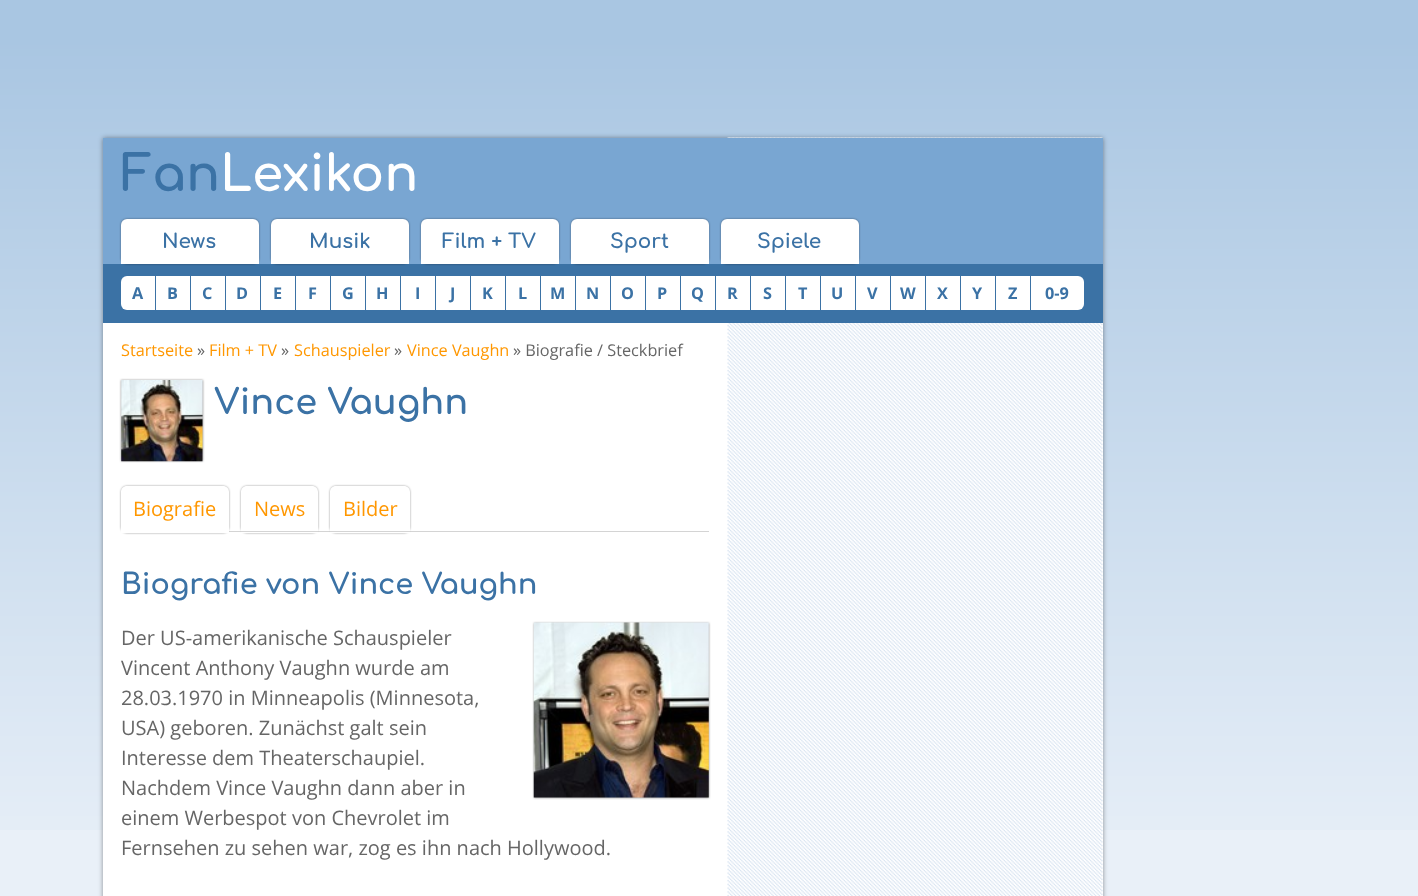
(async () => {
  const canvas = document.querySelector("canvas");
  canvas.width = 1418;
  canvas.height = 896;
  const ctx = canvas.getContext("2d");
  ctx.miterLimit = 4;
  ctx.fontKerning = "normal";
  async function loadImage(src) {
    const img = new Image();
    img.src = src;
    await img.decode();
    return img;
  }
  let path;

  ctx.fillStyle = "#e9f0f8";
  ctx.fillRect(0, 0, 1418, 896);
  ctx.drawImage(await loadImage("img/1.png"), 0, 0, 1418, 830);
  ctx.fillStyle = "rgba(0, 0, 0, 0.5)";
  ctx.filter = "blur(0.5px)";
  ctx.beginPath();
  ctx.rect(103, 138, 1000, 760);
  ctx.fill();
  ctx.filter = "none";
  ctx.fillStyle = "rgba(0, 0, 0, 0.4)";
  ctx.filter = "blur(2.5px)";
  ctx.beginPath();
  ctx.rect(103, 138, 1000, 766);
  ctx.fill();
  ctx.filter = "none";
  ctx.fillStyle = "#ffffff";
  ctx.fillRect(103, 323, 1000, 573);
  ctx.drawImage(await loadImage("img/2.png"), 727, 137, 376, 759);
  ctx.fillStyle = "#79a6d2";
  ctx.fillRect(103, 138, 1000, 126);
  ctx.fillStyle = "#3b72a5";
  ctx.fillRect(103, 264, 1000, 59);
  ctx.fillStyle = "rgba(0, 0, 0, 0.4)";
  ctx.filter = "blur(1px)";
  ctx.beginPath();
  ctx.roundRect(121, 219, 138, 45, 6);
  ctx.fill();
  ctx.filter = "none";
  ctx.fillStyle = "#ffffff";
  ctx.beginPath();
  ctx.roundRect(121, 219, 138, 45, [6, 6, 0, 0]);
  ctx.fill();
  ctx.fillStyle = "rgba(0, 0, 0, 0.4)";
  ctx.filter = "blur(1px)";
  ctx.beginPath();
  ctx.roundRect(271, 219, 138, 45, 6);
  ctx.fill();
  ctx.filter = "none";
  ctx.fillStyle = "#ffffff";
  ctx.beginPath();
  ctx.roundRect(271, 219, 138, 45, [6, 6, 0, 0]);
  ctx.fill();
  ctx.fillStyle = "rgba(0, 0, 0, 0.4)";
  ctx.filter = "blur(1px)";
  ctx.beginPath();
  ctx.roundRect(421, 219, 138, 45, 6);
  ctx.fill();
  ctx.filter = "none";
  ctx.fillStyle = "#ffffff";
  ctx.beginPath();
  ctx.roundRect(421, 219, 138, 45, [6, 6, 0, 0]);
  ctx.fill();
  ctx.fillStyle = "rgba(0, 0, 0, 0.4)";
  ctx.filter = "blur(1px)";
  ctx.beginPath();
  ctx.roundRect(571, 219, 138, 45, 6);
  ctx.fill();
  ctx.filter = "none";
  ctx.fillStyle = "#ffffff";
  ctx.beginPath();
  ctx.roundRect(571, 219, 138, 45, [6, 6, 0, 0]);
  ctx.fill();
  ctx.fillStyle = "rgba(0, 0, 0, 0.4)";
  ctx.filter = "blur(1px)";
  ctx.beginPath();
  ctx.roundRect(721, 219, 138, 45, 6);
  ctx.fill();
  ctx.filter = "none";
  ctx.fillStyle = "#ffffff";
  ctx.beginPath();
  ctx.roundRect(721, 219, 138, 45, [6, 6, 0, 0]);
  ctx.fill();
  ctx.beginPath();
  ctx.roundRect(121, 276, 34, 34, [6, 0, 0, 6]);
  ctx.fill();
  for (const [x, y, w, h, color] of [
    [156, 276, 34, 34, "#ffffff"],
    [191, 276, 34, 34, "#ffffff"],
    [226, 276, 34, 34, "#ffffff"],
    [261, 276, 34, 34, "#ffffff"],
    [296, 276, 34, 34, "#ffffff"],
    [331, 276, 34, 34, "#ffffff"],
    [366, 276, 34, 34, "#ffffff"],
    [401, 276, 34, 34, "#ffffff"],
    [436, 276, 34, 34, "#ffffff"],
    [471, 276, 34, 34, "#ffffff"],
    [506, 276, 34, 34, "#ffffff"],
    [541, 276, 34, 34, "#ffffff"],
    [576, 276, 34, 34, "#ffffff"],
    [611, 276, 34, 34, "#ffffff"],
    [646, 276, 34, 34, "#ffffff"],
    [681, 276, 34, 34, "#ffffff"],
    [716, 276, 34, 34, "#ffffff"],
    [751, 276, 34, 34, "#ffffff"],
    [786, 276, 34, 34, "#ffffff"],
    [821, 276, 34, 34, "#ffffff"],
    [856, 276, 34, 34, "#ffffff"],
    [891, 276, 34, 34, "#ffffff"],
    [926, 276, 34, 34, "#ffffff"],
    [961, 276, 34, 34, "#ffffff"],
    [996, 276, 34, 34, "#ffffff"],
  ]) {
    ctx.fillStyle = color;
    ctx.fillRect(x, y, w, h);
  }
  ctx.beginPath();
  ctx.roundRect(1031, 276, 53, 34, [0, 6, 6, 0]);
  ctx.fill();
  ctx.fillStyle = "rgba(0, 0, 0, 0.4)";
  ctx.filter = "blur(1px)";
  ctx.beginPath();
  ctx.rect(121, 380, 82, 81);
  ctx.fill();
  ctx.filter = "none";
  ctx.drawImage(await loadImage("img/3.png"), 121, 380, 82, 82);
  ctx.fillStyle = "#d4d4d4";
  ctx.fillRect(229, 531, 480, 1);
  ctx.save();
  path = new Path2D("M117 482H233V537H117ZM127 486H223C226.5 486 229 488.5 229 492V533H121V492C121 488.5 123.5 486 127 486Z");
  ctx.clip(path, "evenodd");
  ctx.fillStyle = "rgba(0, 0, 0, 0.4)";
  ctx.filter = "blur(1px)";
  ctx.beginPath();
  ctx.roundRect(121, 486, 108, 47, 6);
  ctx.fill();
  ctx.filter = "none";
  ctx.restore();
  ctx.fillStyle = "#ffffff";
  ctx.fillRect(121, 531, 108, 1);
  ctx.save();
  path = new Path2D("M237 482H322V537H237ZM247 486H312C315.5 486 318 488.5 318 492V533H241V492C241 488.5 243.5 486 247 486Z");
  ctx.clip(path, "evenodd");
  ctx.fillStyle = "rgba(0, 0, 0, 0.4)";
  ctx.filter = "blur(1px)";
  ctx.beginPath();
  ctx.roundRect(241, 486, 77, 47, 6);
  ctx.fill();
  ctx.filter = "none";
  ctx.restore();
  ctx.fillStyle = "#d4d4d4";
  ctx.fillRect(317, 531, 1, 1);
  ctx.save();
  path = new Path2D("M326 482H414V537H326ZM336 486H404C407.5 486 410 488.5 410 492V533H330V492C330 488.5 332.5 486 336 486Z");
  ctx.clip(path, "evenodd");
  ctx.fillStyle = "rgba(0, 0, 0, 0.4)";
  ctx.filter = "blur(1px)";
  ctx.beginPath();
  ctx.roundRect(330, 486, 80, 47, 6);
  ctx.fill();
  ctx.filter = "none";
  ctx.restore();
  ctx.fillStyle = "rgba(0, 0, 0, 0.4)";
  ctx.filter = "blur(1px)";
  ctx.beginPath();
  ctx.rect(534, 623, 175, 175);
  ctx.fill();
  ctx.filter = "none";
  ctx.drawImage(await loadImage("img/4.png"), 533, 622, 176, 176);
  ctx.font = "bold 50px Comfortaa";
  ctx.fillStyle = "#3b72a5";
  ctx.fillText("Fan", 121, 191);
  ctx.fillStyle = "#ffffff";
  ctx.fillText("Lexikon", 220, 191);
  ctx.font = "bold 20px Comfortaa";
  ctx.fillStyle = "#3b72a5";
  for (const [text, x, y] of [
    ["News", 162, 248],
    ["Musik", 309, 248],
    ["Film + TV", 442, 248],
    ["Sport", 610, 248],
    ["Spiele", 757, 248],
  ]) {
    ctx.fillText(text, x, y);
  }
  ctx.font = "bold 16.25px Open Sans";
  for (const [text, x, y] of [
    ["A", 132, 299],
    ["B", 167, 299],
    ["C", 202, 299],
    ["D", 236, 299],
    ["E", 273, 299],
    ["F", 308, 299],
    ["G", 342, 299],
    ["H", 376, 299],
    ["I", 415, 299],
    ["J", 450, 299],
    ["K", 482, 299],
    ["L", 518, 299],
    ["M", 550, 299],
    ["N", 586, 299],
    ["O", 621, 299],
    ["P", 657, 299],
    ["Q", 691, 299],
    ["R", 727, 299],
    ["S", 763, 299],
    ["T", 798, 299],
    ["U", 831, 299],
    ["V", 867, 299],
    ["W", 900, 299],
    ["X", 937, 299],
    ["Y", 972, 299],
    ["Z", 1008, 299],
    ["0-9", 1045, 299],
  ]) {
    ctx.fillText(text, x, y);
  }
  ctx.font = "16.25px Open Sans";
  ctx.fillStyle = "#ff9700";
  ctx.fillText("Startseite", 121, 356);
  ctx.fillStyle = "#666666";
  ctx.fillText("»", 197, 356);
  ctx.fillStyle = "#ff9700";
  ctx.fillText("Film + TV", 209, 356);
  ctx.fillStyle = "#666666";
  ctx.fillText("»", 281, 356);
  ctx.fillStyle = "#ff9700";
  ctx.fillText("Schauspieler", 294, 356);
  ctx.fillStyle = "#666666";
  ctx.fillText("»", 394, 356);
  ctx.fillStyle = "#ff9700";
  ctx.fillText("Vince Vaughn", 407, 356);
  ctx.fillStyle = "#666666";
  ctx.fillText("» Biografie / Steckbrief", 513, 356);
  ctx.font = "bold 35px Comfortaa";
  ctx.fillStyle = "#3b72a5";
  ctx.fillText("Vince Vaughn", 214, 414);
  ctx.font = "20px Open Sans";
  ctx.fillStyle = "#ff9700";
  for (const [text, x, y] of [
    ["Biografie", 133, 516],
    ["News", 254, 516],
    ["Bilder", 343, 516],
  ]) {
    ctx.fillText(text, x, y);
  }
  ctx.font = "bold 28.75px Comfortaa";
  ctx.fillStyle = "#3b72a5";
  ctx.fillText("Biografie von Vince Vaughn", 121, 594);
  ctx.font = "20px Open Sans";
  ctx.fillStyle = "#666666";
  for (const [text, x, y] of [
    ["Der US-amerikanische Schauspieler", 121, 645],
    ["Vincent Anthony Vaughn wurde am", 121, 675],
    ["28.03.1970 in Minneapolis (Minnesota,", 121, 705],
    ["USA) geboren. Zunächst galt sein", 121, 735],
    ["Interesse dem Theaterschaupiel.", 121, 765],
    ["Nachdem Vince Vaughn dann aber in", 121, 795],
    ["einem Werbespot von Chevrolet im", 121, 825],
    ["Fernsehen zu sehen war, zog es ihn nach Hollywood.", 121, 855],
  ]) {
    ctx.fillText(text, x, y);
  }
})();
